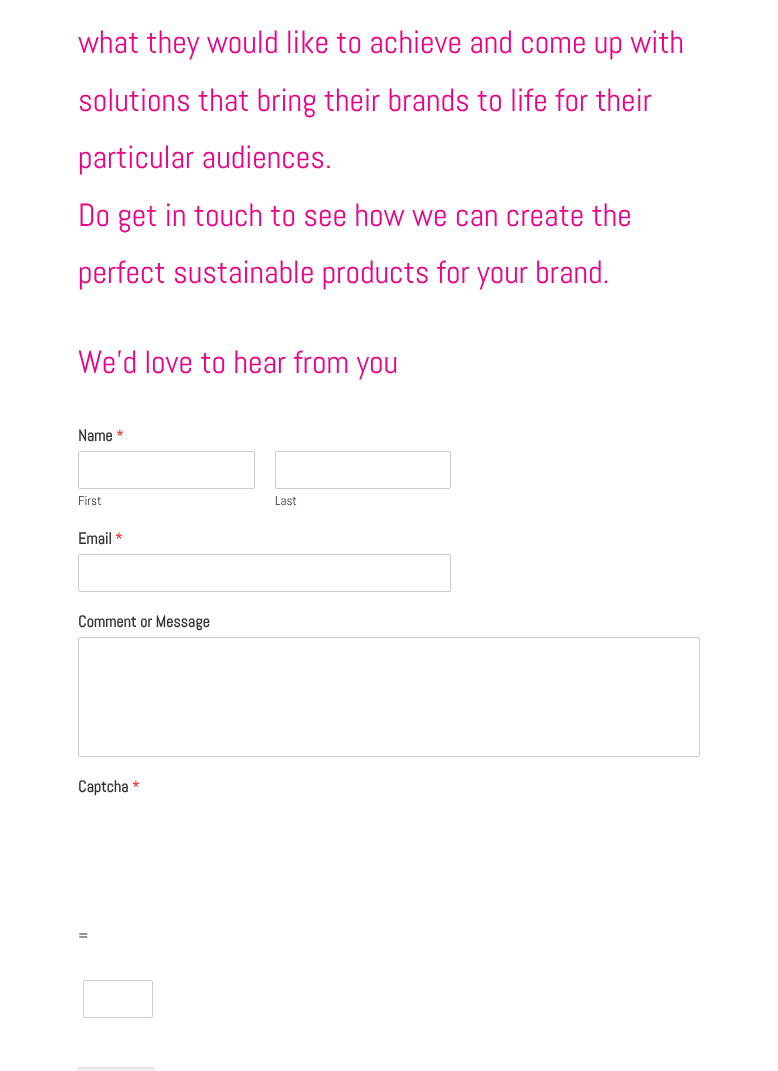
(async () => {
  const canvas = document.querySelector("canvas");
  canvas.width = 778;
  canvas.height = 1071;
  const ctx = canvas.getContext("2d");
  ctx.miterLimit = 4;
  ctx.fontKerning = "normal";

  ctx.fillStyle = "#ffffff";
  ctx.fillRect(0, 0, 778, 1071);
  ctx.beginPath();
  ctx.roundRect(78.5, 451.5, 176, 37, 1.5);
  ctx.strokeStyle = "#cccccc";
  ctx.stroke();
  ctx.beginPath();
  ctx.roundRect(275.5, 451.5, 175, 37, 1.5);
  ctx.stroke();
  ctx.beginPath();
  ctx.roundRect(78.5, 554.5, 372, 37, 1.5);
  ctx.stroke();
  ctx.beginPath();
  ctx.roundRect(78.5, 637.5, 621, 119, 1.5);
  ctx.stroke();
  ctx.beginPath();
  ctx.roundRect(83.5, 980.5, 69, 37, 1.5);
  ctx.stroke();
  ctx.fillStyle = "#eeeeee";
  ctx.beginPath();
  ctx.rect(78.5, 1067.5, 75, 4);
  ctx.fill();
  ctx.strokeStyle = "#dddddd";
  ctx.stroke();
  ctx.font = "32px Abel";
  ctx.fillStyle = "#eb0087";
  for (const [text, x, y] of [
    ["what they would like to achieve and come up with", 78, 53],
    ["solutions that bring their brands to life for their", 78, 111],
    ["particular audiences.", 78, 168],
    ["Do get in touch to see how we can create the", 78, 226],
    ["perfect sustainable products for your brand.", 78, 283],
    ["We’d love to hear from you", 78, 373],
  ]) {
    ctx.fillText(text, x, y);
  }
  ctx.font = "bold 16px Abel";
  ctx.fillStyle = "#333333";
  ctx.fillText("Name", 78, 441);
  ctx.font = "16px Abel";
  ctx.fillStyle = "#ff0000";
  ctx.fillText("*", 116, 441);
  ctx.font = "13px Abel";
  ctx.fillStyle = "#333333";
  ctx.fillText("First", 78, 505);
  ctx.fillText("Last", 275, 505);
  ctx.font = "bold 16px Abel";
  ctx.fillText("Email", 78, 544);
  ctx.font = "16px Abel";
  ctx.fillStyle = "#ff0000";
  ctx.fillText("*", 115, 544);
  ctx.font = "bold 16px Abel";
  ctx.fillStyle = "#333333";
  ctx.fillText("Comment or Message", 78, 627);
  ctx.fillText("Captcha", 78, 792);
  ctx.font = "16px Abel";
  ctx.fillStyle = "#ff0000";
  ctx.fillText("*", 132, 792);
  ctx.fillStyle = "#333333";
  ctx.fillText("=", 78, 941);
})();
